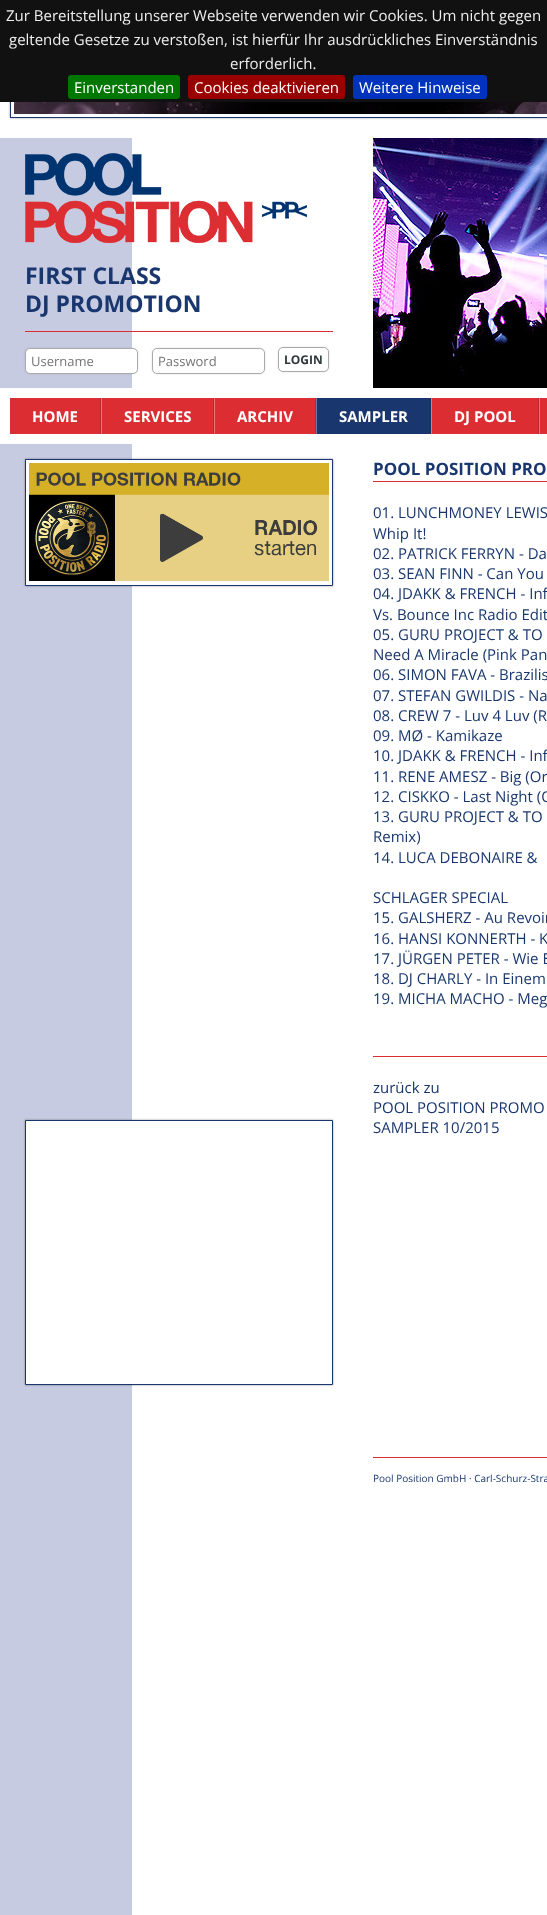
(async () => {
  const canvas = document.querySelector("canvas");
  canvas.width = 547;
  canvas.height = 1915;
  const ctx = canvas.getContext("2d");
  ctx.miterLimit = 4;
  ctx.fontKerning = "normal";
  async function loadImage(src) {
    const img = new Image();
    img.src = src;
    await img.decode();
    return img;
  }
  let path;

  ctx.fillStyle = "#ffffff";
  ctx.fillRect(0, 0, 547, 1915);
  ctx.save();
  path = new Path2D("M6 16H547V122H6ZM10 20H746V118H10Z");
  ctx.clip(path, "evenodd");
  ctx.fillStyle = "rgba(0, 0, 0, 0.4)";
  ctx.filter = "blur(1px)";
  ctx.beginPath();
  ctx.rect(10, 20, 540, 98);
  ctx.fill();
  ctx.filter = "none";
  ctx.restore();
  ctx.strokeStyle = "#19376e";
  ctx.strokeRect(10.5, 20.5, 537, 97);
  ctx.fillStyle = "#111111";
  ctx.fillRect(0, 0, 547, 102);
  ctx.fillStyle = "#007700";
  ctx.beginPath();
  ctx.roundRect(68, 75, 112, 24, 3);
  ctx.fill();
  ctx.fillStyle = "#990000";
  ctx.beginPath();
  ctx.roundRect(188, 75, 157, 24, 3);
  ctx.fill();
  ctx.fillStyle = "#0033bb";
  ctx.beginPath();
  ctx.roundRect(353, 75, 134, 24, 3);
  ctx.fill();
  ctx.fillStyle = "#c7cbe1";
  ctx.fillRect(0, 138, 132, 1777);
  ctx.drawImage(await loadImage("img/1.png"), 14, 102, 533, 12);
  ctx.drawImage(await loadImage("img/2.png"), 25, 153, 282, 90);
  ctx.fillStyle = "#dc2d32";
  ctx.fillRect(25, 331, 308, 1);
  ctx.fillStyle = "rgba(0, 0, 0, 0.1)";
  ctx.filter = "blur(1px)";
  ctx.beginPath();
  ctx.roundRect(25, 348, 113, 26, 5);
  ctx.fill();
  ctx.filter = "none";
  ctx.fillStyle = "#ffffff";
  ctx.beginPath();
  ctx.roundRect(25.5, 348.5, 112, 25, 4.5);
  ctx.fill();
  ctx.strokeStyle = "#aaaaaa";
  ctx.stroke();
  ctx.fillStyle = "rgba(0, 0, 0, 0.1)";
  ctx.filter = "blur(1px)";
  ctx.beginPath();
  ctx.roundRect(152, 348, 113, 26, 5);
  ctx.fill();
  ctx.filter = "none";
  ctx.fillStyle = "#ffffff";
  ctx.beginPath();
  ctx.roundRect(152.5, 348.5, 112, 25, 4.5);
  ctx.fill();
  ctx.stroke();
  ctx.fillStyle = "rgba(0, 0, 0, 0.1)";
  ctx.filter = "blur(1px)";
  ctx.beginPath();
  ctx.roundRect(278, 347, 51, 25, 5);
  ctx.fill();
  ctx.filter = "none";
  ctx.fillStyle = "#ffffff";
  ctx.beginPath();
  ctx.roundRect(278.5, 347.5, 50, 24, 4.5);
  ctx.fill();
  ctx.stroke();
  ctx.drawImage(await loadImage("img/3.png"), 373, 138, 174, 250);
  for (const [x, y, w, h, color] of [
    [0, 388, 132, 56, "#ffffff"],
    [10, 398, 537, 36, "#dc2d32"],
    [100, 398, 1, 36, "#bb262b"],
    [213, 398, 1, 36, "#bb262b"],
    [101, 398, 1, 36, "#e8777a"],
    [315, 398, 1, 36, "#bb262b"],
    [214, 398, 1, 36, "#e8777a"],
    [317, 398, 113, 36, "#19376e"],
    [430, 398, 1, 36, "#152f5e"],
    [316, 398, 1, 36, "#6a7da1"],
    [538, 398, 1, 36, "#bb262b"],
    [431, 398, 1, 36, "#e8777a"],
    [539, 398, 1, 36, "#e8777a"],
  ]) {
    ctx.fillStyle = color;
    ctx.fillRect(x, y, w, h);
  }
  ctx.fillStyle = "rgba(0, 0, 0, 0.4)";
  ctx.filter = "blur(1px)";
  ctx.beginPath();
  ctx.rect(25, 459, 308, 127);
  ctx.fill();
  ctx.filter = "none";
  ctx.fillStyle = "#ffffff";
  ctx.beginPath();
  ctx.rect(25.5, 459.5, 307, 126);
  ctx.fill();
  ctx.strokeStyle = "#19376e";
  ctx.stroke();
  ctx.drawImage(await loadImage("img/4.png"), 29, 463, 300, 118);
  ctx.fillStyle = "rgba(0, 0, 0, 0.4)";
  ctx.filter = "blur(1px)";
  ctx.beginPath();
  ctx.rect(25, 1120, 308, 265);
  ctx.fill();
  ctx.filter = "none";
  ctx.fillStyle = "#ffffff";
  ctx.beginPath();
  ctx.rect(25.5, 1120.5, 307, 264);
  ctx.fill();
  ctx.stroke();
  for (const [x, y, w, h, color] of [
    [373, 481, 174, 1, "#dc2d32"],
    [373, 1056, 174, 1, "#dc2d32"],
    [373, 1457, 174, 1, "#dc2d32"],
  ]) {
    ctx.fillStyle = color;
    ctx.fillRect(x, y, w, h);
  }
  ctx.font = "15px Open Sans";
  ctx.fillStyle = "#eeeeee";
  for (const [text, x, y] of [
    ["Zur Bereitstellung unserer Webseite verwenden wir Cookies. Um nicht gegen", 6, 21],
    ["geltende Gesetze zu verstoßen, ist hierfür Ihr ausdrückliches Einverständnis", 9, 45],
    ["erforderlich.", 230, 69],
  ]) {
    ctx.fillText(text, x, y);
  }
  ctx.fillStyle = "#ffffff";
  for (const [text, x, y] of [
    ["Einverstanden", 74, 93],
    ["Cookies deaktivieren", 194, 93],
    ["Weitere Hinweise", 359, 93],
  ]) {
    ctx.fillText(text, x, y);
  }
  ctx.font = "bold 23px Open Sans";
  ctx.fillStyle = "#19376e";
  ctx.fillText("FIRST CLASS", 25, 284);
  ctx.fillText("DJ PROMOTION", 25, 312);
  ctx.font = "13px Open Sans";
  ctx.fillStyle = "#757575";
  ctx.fillText("Username", 31, 366);
  ctx.fillText("Password", 158, 366);
  ctx.font = "bold 12px Open Sans";
  ctx.fillStyle = "#2f383b";
  ctx.fillText("LOGIN", 284, 364);
  ctx.font = "bold 15px Open Sans";
  ctx.fillStyle = "#ffffff";
  for (const [text, x, y] of [
    ["HOME", 32, 422],
    ["SERVICES", 124, 422],
    ["ARCHIV", 237, 422],
    ["SAMPLER", 339, 422],
    ["DJ POOL", 454, 422],
  ]) {
    ctx.fillText(text, x, y);
  }
  ctx.font = "bold 17px Open Sans";
  ctx.fillStyle = "#19376e";
  ctx.fillText("POOL POSITION PRO", 373, 475);
  ctx.font = "15px Open Sans";
  for (const [text, x, y] of [
    ["01. LUNCHMONEY LEWIS", 373, 518],
    ["Whip It!", 373, 539],
    ["02. PATRICK FERRYN - Da", 373, 559],
    ["03. SEAN FINN - Can You", 373, 579],
    ["04. JDAKK & FRENCH - Inf", 373, 599],
    ["Vs. Bounce Inc Radio Edit", 373, 620],
    ["05. GURU PROJECT & TO", 373, 640],
    ["Need A Miracle (Pink Pan", 373, 660],
    ["06. SIMON FAVA - Brazilis", 373, 680],
    ["07. STEFAN GWILDIS - Na", 373, 701],
    ["08. CREW 7 - Luv 4 Luv (R", 373, 721],
    ["09. MØ - Kamikaze", 373, 741],
    ["10. JDAKK & FRENCH - Inf", 373, 761],
    ["11. RENE AMESZ - Big (Or", 373, 782],
    ["12. CISKKO - Last Night (O", 373, 802],
    ["13. GURU PROJECT & TO", 373, 822],
    ["Remix)", 373, 842],
    ["14. LUCA DEBONAIRE &", 373, 863],
    ["SCHLAGER SPECIAL", 373, 903],
    ["15. GALSHERZ - Au Revoir", 373, 923],
    ["16. HANSI KONNERTH - K", 373, 944],
    ["17. JÜRGEN PETER - Wie E", 373, 964],
    ["18. DJ CHARLY - In Einem", 373, 984],
    ["19. MICHA MACHO - Meg", 373, 1004],
    ["zurück zu", 373, 1093],
    ["POOL POSITION PROMO", 373, 1113],
    ["SAMPLER 10/2015", 373, 1133],
  ]) {
    ctx.fillText(text, x, y);
  }
  ctx.font = "10px Open Sans";
  ctx.fillText("Pool Position GmbH · Carl-Schurz-Stra", 373, 1482);
})();
